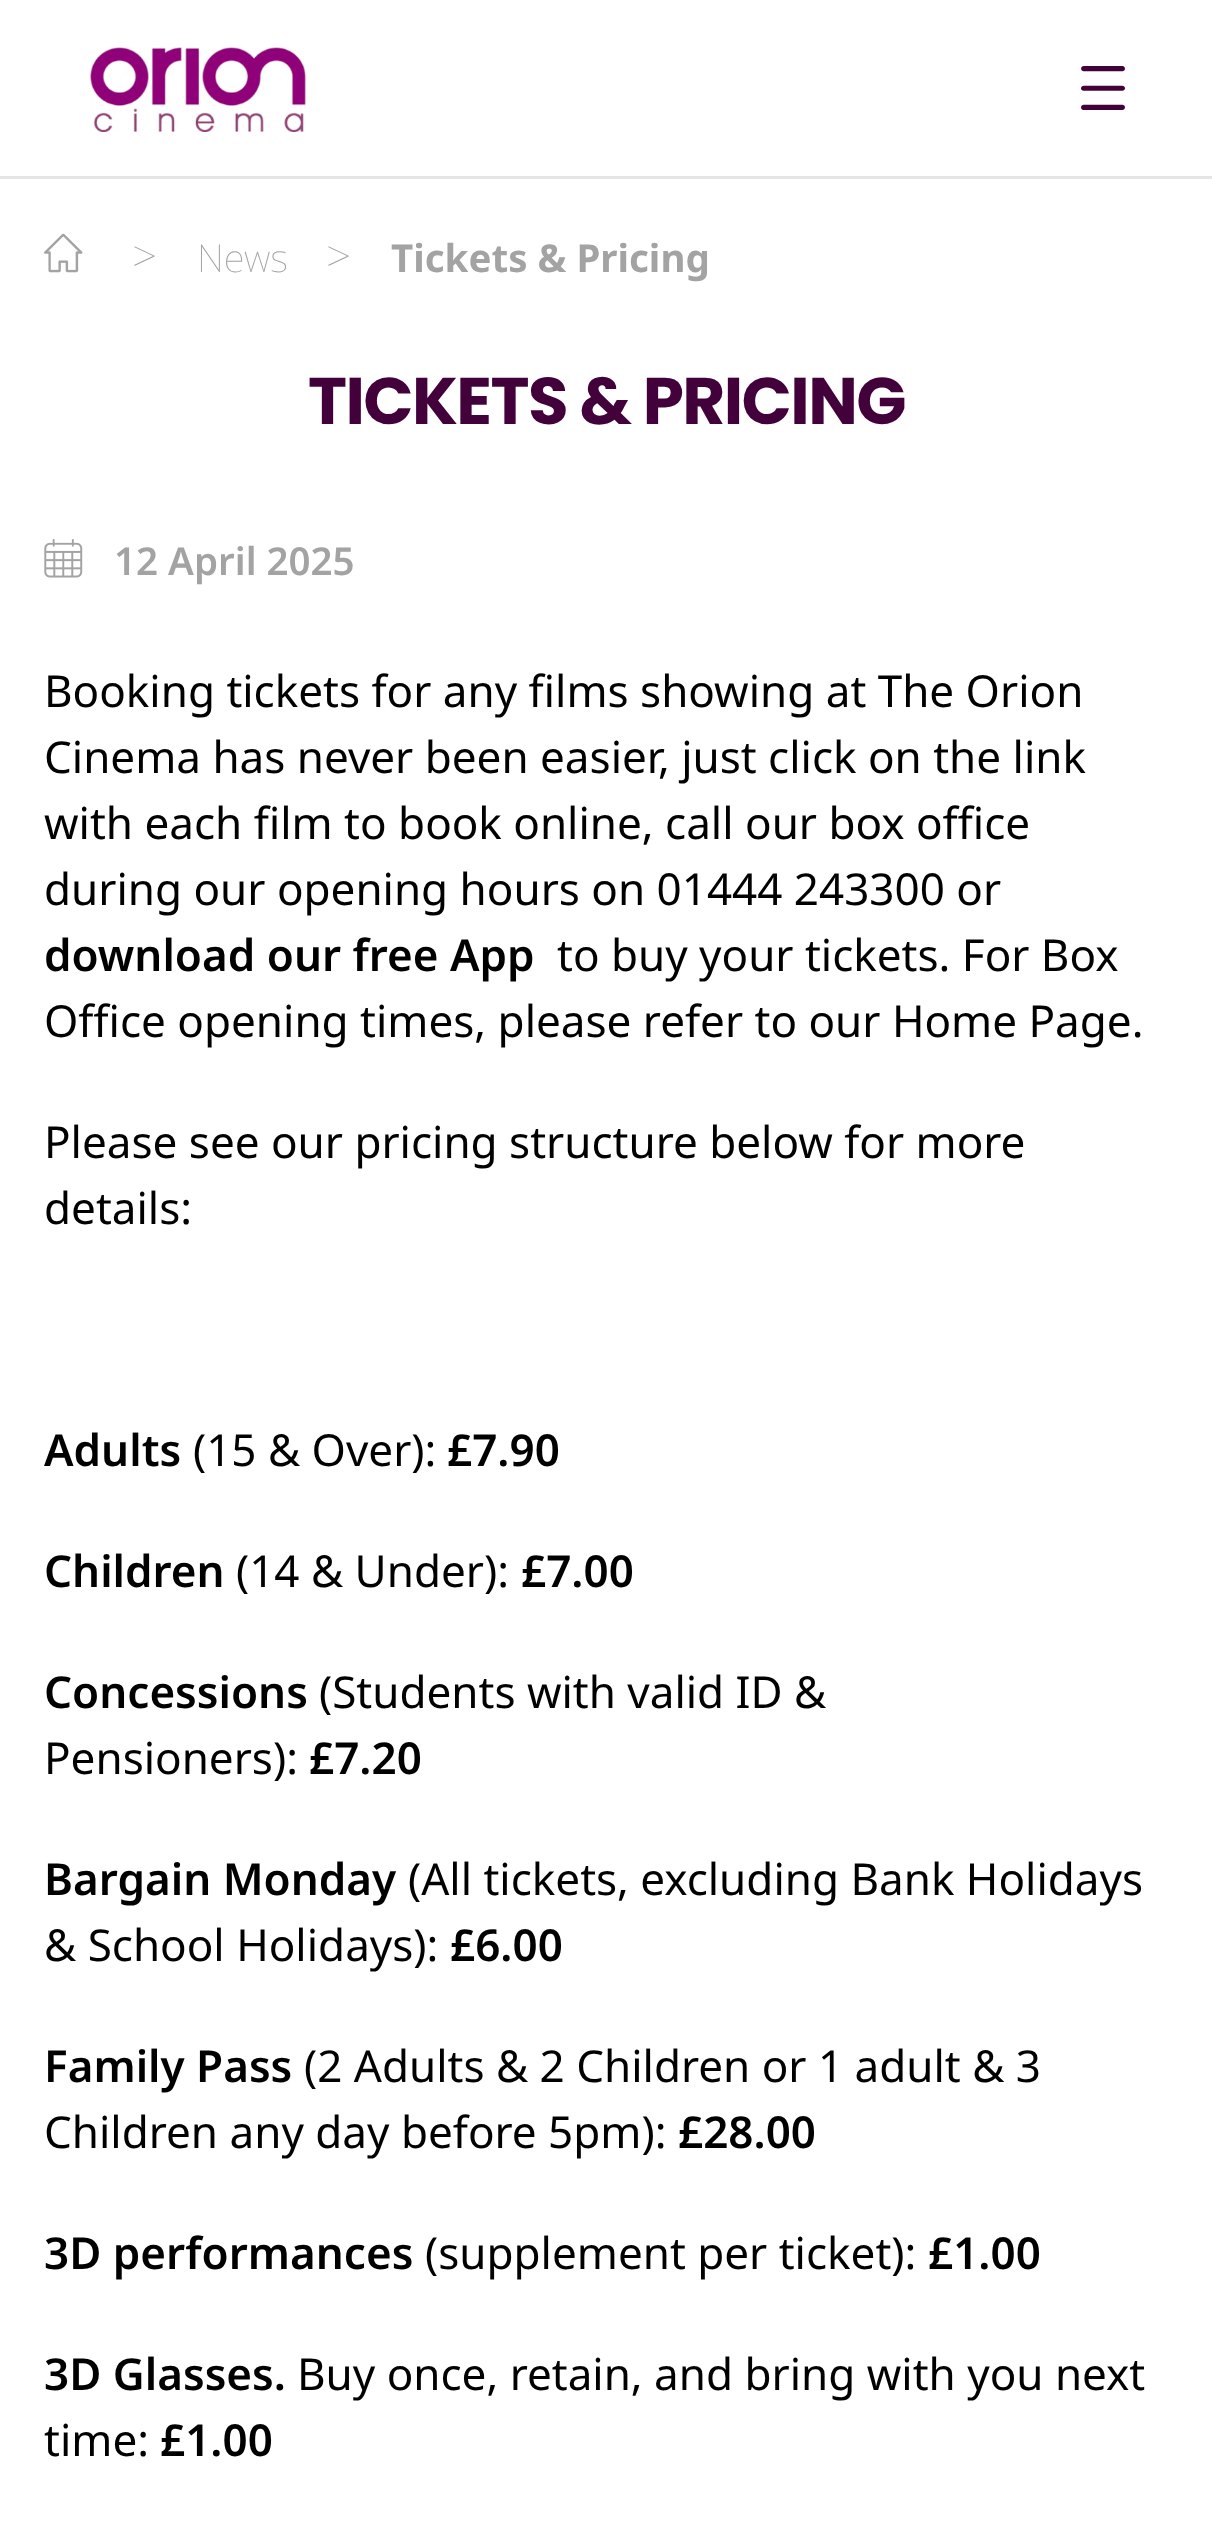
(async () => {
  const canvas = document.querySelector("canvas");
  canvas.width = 1212;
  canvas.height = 2547;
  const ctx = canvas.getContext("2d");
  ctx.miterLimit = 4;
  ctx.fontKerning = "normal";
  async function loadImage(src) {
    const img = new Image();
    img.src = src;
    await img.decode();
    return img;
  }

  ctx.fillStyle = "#ffffff";
  ctx.fillRect(0, 0, 1212, 2547);
  ctx.fillStyle = "#e5e5e5";
  ctx.fillRect(0, 176, 1212, 3);
  ctx.drawImage(await loadImage("img/1.png"), 90, 47, 216, 85);
  ctx.drawImage(await loadImage("img/2.png"), 44, 233, 39, 40);
  ctx.drawImage(await loadImage("img/3.png"), 44, 539, 39, 39);
  ctx.font = "44px 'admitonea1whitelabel'";
  ctx.fillStyle = "#42013a";
  ctx.fillText("@", 1081, 110);
  ctx.font = "100 44px Noto Sans";
  ctx.fillStyle = "#a3a3a3";
  ctx.fillText(">", 132, 272);
  ctx.font = "100 38.5px Noto Sans";
  ctx.fillText("News", 197, 272);
  ctx.font = "100 44px Noto Sans";
  ctx.fillText(">", 326, 272);
  ctx.font = "bold 38.5px Noto Sans";
  ctx.fillText("Tickets & Pricing", 391, 272);
  ctx.letterSpacing = "-1.6px";
  ctx.font = "bold 66px Poppins";
  ctx.fillStyle = "#42013a";
  ctx.fillText("TICKETS & PRICING", 308, 424);
  ctx.letterSpacing = "0px";
  ctx.font = "600 38.5px Noto Sans";
  ctx.fillStyle = "#a3a3a3";
  ctx.fillText("12 April 2025", 114, 575);
  ctx.font = "44px Noto Sans";
  ctx.fillStyle = "#000000";
  for (const [text, x, y] of [
    ["Booking tickets for any films showing at The Orion", 44, 707],
    ["Cinema has never been easier, just click on the link", 44, 773],
    ["with each film to book online, call our box office", 44, 839],
    ["during our opening hours on 01444 243300 or", 44, 905],
  ]) {
    ctx.fillText(text, x, y);
  }
  ctx.font = "600 44px Noto Sans";
  ctx.fillText("download our free App", 44, 971);
  ctx.font = "44px Noto Sans";
  for (const [text, x, y] of [
    ["to buy your tickets. For Box", 557, 971],
    ["Office opening times, please refer to our Home Page.", 44, 1037],
    ["Please see our pricing structure below for more", 44, 1158],
    ["details:", 44, 1224],
  ]) {
    ctx.fillText(text, x, y);
  }
  ctx.font = "600 44px Noto Sans";
  ctx.fillText("Adults", 44, 1466);
  ctx.font = "44px Noto Sans";
  ctx.fillText("(15 & Over):", 193, 1466);
  ctx.font = "600 44px Noto Sans";
  ctx.fillText("£7.90", 447, 1466);
  ctx.fillText("Children", 44, 1587);
  ctx.font = "44px Noto Sans";
  ctx.fillText("(14 & Under):", 236, 1587);
  ctx.font = "600 44px Noto Sans";
  ctx.fillText("£7.00", 521, 1587);
  ctx.fillText("Concessions", 44, 1708);
  ctx.font = "44px Noto Sans";
  ctx.fillText("(Students with valid ID &", 319, 1708);
  ctx.fillText("Pensioners):", 44, 1774);
  ctx.font = "600 44px Noto Sans";
  ctx.fillText("£7.20", 309, 1774);
  ctx.fillText("Bargain Monday", 44, 1895);
  ctx.font = "44px Noto Sans";
  ctx.fillText("(All tickets, excluding Bank Holidays", 408, 1895);
  ctx.fillText("& School Holidays):", 44, 1961);
  ctx.font = "600 44px Noto Sans";
  ctx.fillText("£6.00", 450, 1961);
  ctx.fillText("Family Pass", 44, 2082);
  ctx.font = "44px Noto Sans";
  ctx.fillText("(2 Adults & 2 Children or 1 adult & 3", 304, 2082);
  ctx.fillText("Children any day before 5pm):", 44, 2148);
  ctx.font = "600 44px Noto Sans";
  ctx.fillText("£28.00", 678, 2148);
  ctx.fillText("3D performances", 44, 2269);
  ctx.font = "44px Noto Sans";
  ctx.fillText("(supplement per ticket):", 425, 2269);
  ctx.font = "600 44px Noto Sans";
  ctx.fillText("£1.00", 928, 2269);
  ctx.fillText("3D Glasses.", 44, 2390);
  ctx.font = "44px Noto Sans";
  ctx.fillText("Buy once, retain, and bring with you next", 297, 2390);
  ctx.fillText("time:", 44, 2456);
  ctx.font = "600 44px Noto Sans";
  ctx.fillText("£1.00", 160, 2456);
})();
